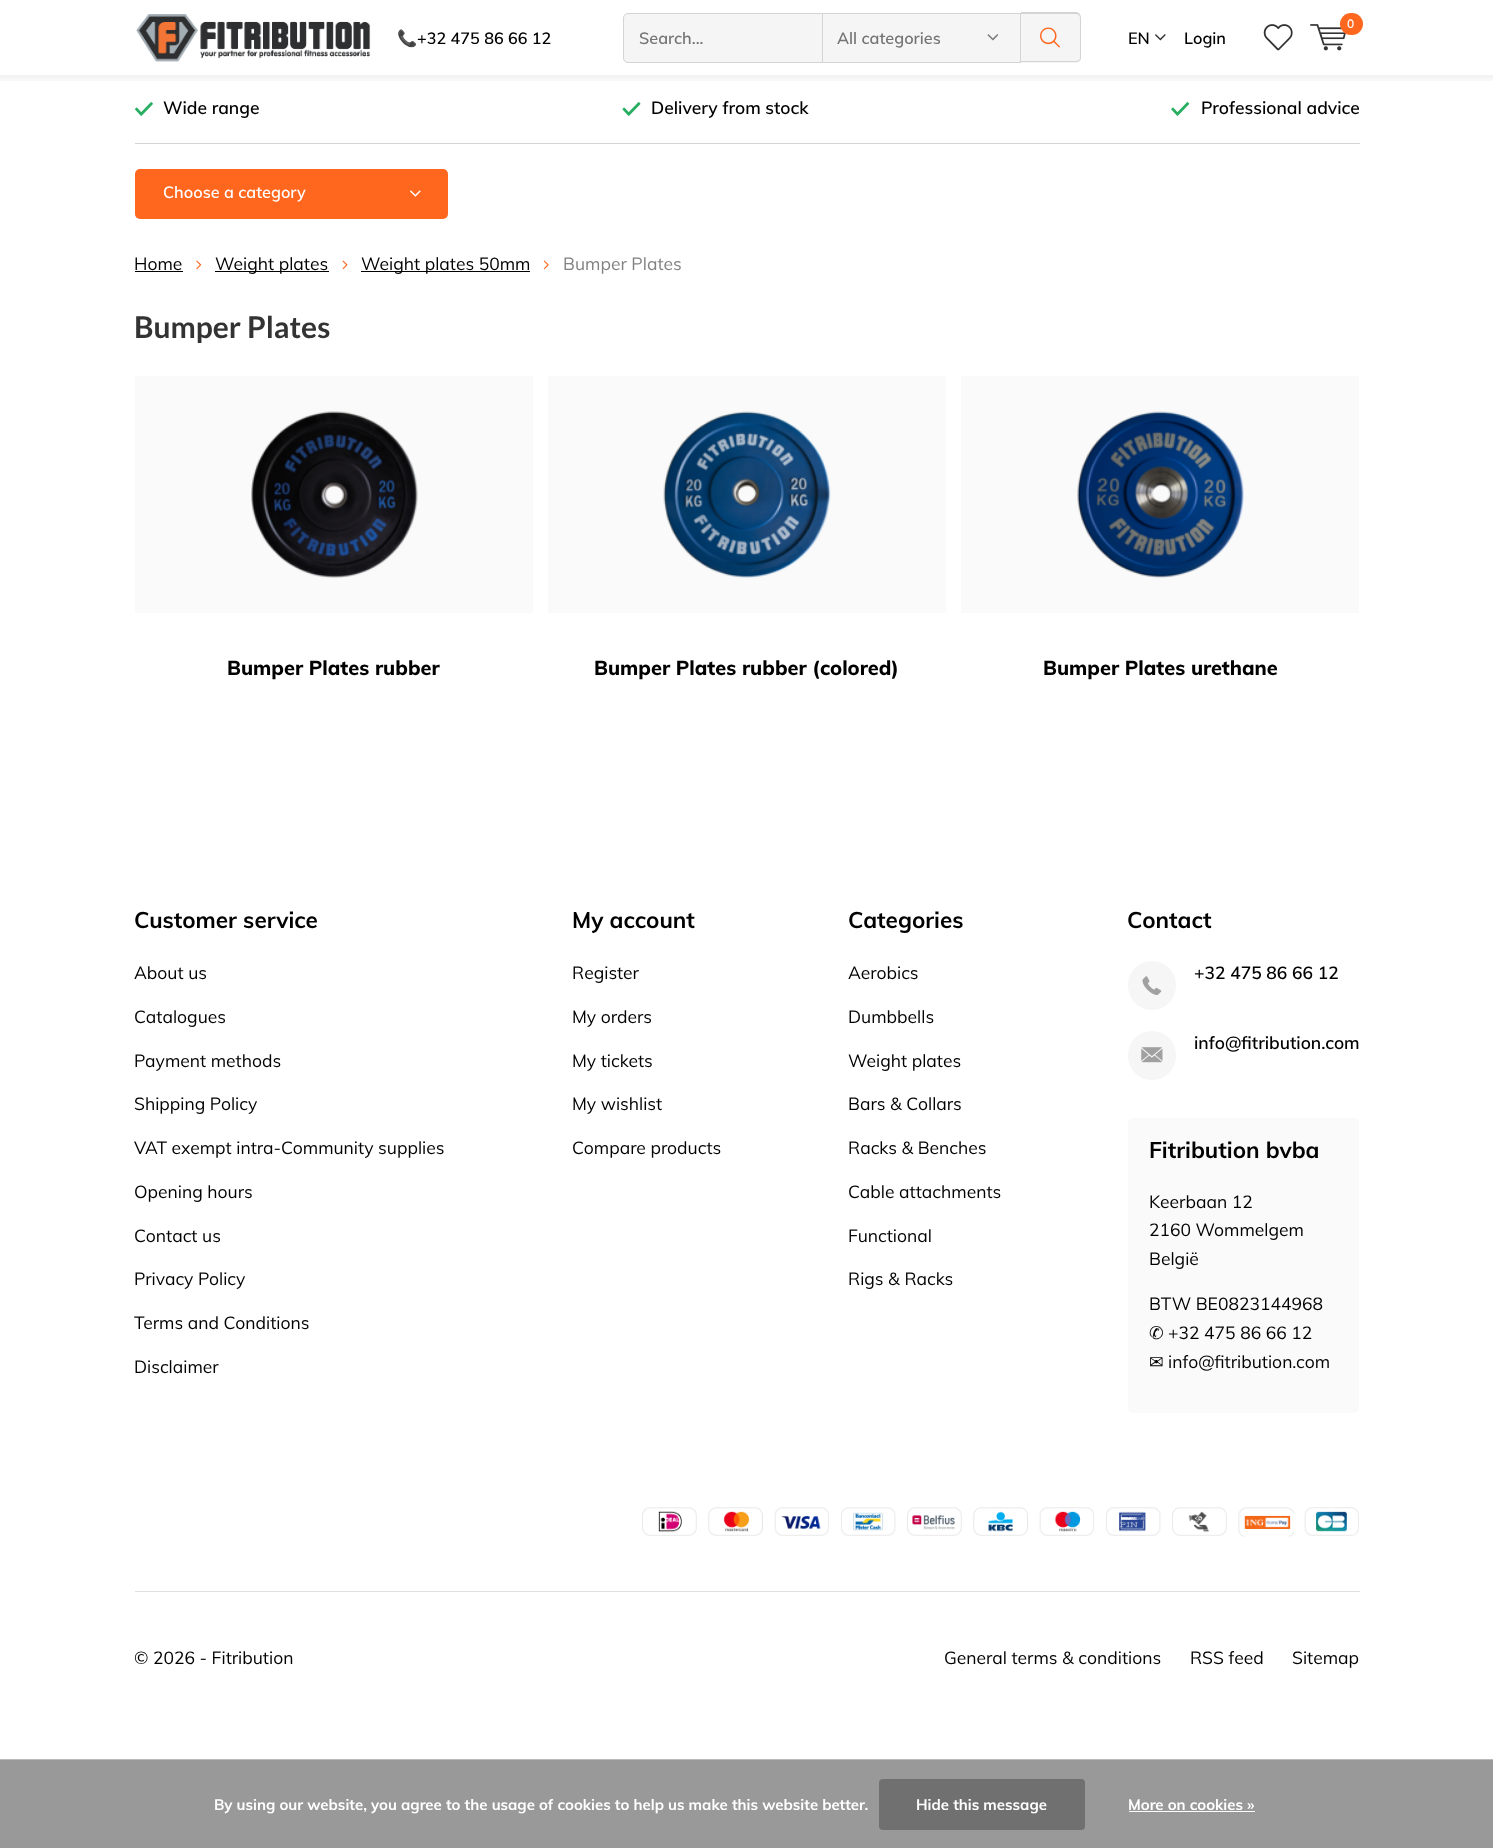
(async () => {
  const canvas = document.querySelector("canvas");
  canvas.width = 1493;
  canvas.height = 1848;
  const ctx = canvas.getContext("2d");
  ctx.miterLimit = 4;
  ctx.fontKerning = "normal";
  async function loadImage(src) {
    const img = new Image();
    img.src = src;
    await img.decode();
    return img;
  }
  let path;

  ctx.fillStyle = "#ffffff";
  ctx.fillRect(0, 0, 1493, 1848);
  for (const [x, y, w, h, color] of [
    [961, 376, 398, 237, "#fafafa"],
    [548, 376, 398, 237, "#fafafa"],
    [135, 376, 398, 237, "#fafafa"],
  ]) {
    ctx.fillStyle = color;
    ctx.fillRect(x, y, w, h);
  }
  ctx.save();
  ctx.beginPath();
  ctx.rect(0, 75, 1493, 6);
  ctx.clip();
  ctx.fillStyle = "rgba(0, 0, 0, 0.05)";
  ctx.filter = "blur(2.5px)";
  ctx.beginPath();
  ctx.rect(-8, 5, 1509, 75);
  ctx.fill();
  ctx.filter = "none";
  ctx.restore();
  ctx.drawImage(await loadImage("img/1.png"), 136, 14, 235, 48);
  ctx.fillStyle = "#f5f5f5";
  ctx.fillRect(823, 14, 197, 48);
  ctx.strokeStyle = "#d4d4d4";
  ctx.strokeRect(821.5, 13.5, 199, 49);
  ctx.beginPath();
  ctx.roundRect(623.5, 13.5, 199, 49, [4.5, 0, 0, 4.5]);
  ctx.fill();
  ctx.stroke();
  ctx.drawImage(await loadImage("img/2.png"), 987, 34, 12, 7);
  ctx.beginPath();
  ctx.roundRect(1021, 13, 60, 50, [0, 5, 5, 0]);
  ctx.fill();
  ctx.fillStyle = "#d4d4d4";
  path = new Path2D("M1021 12H1076C1079 12 1081 15 1081 18V58C1081 60 1079 62 1076 62H1021ZM1021 14H1076C1078 14 1080 15 1080 18V58C1080 60 1078 61 1076 61H1021Z");
  ctx.fill(path, "evenodd");
  ctx.drawImage(await loadImage("img/3.png"), 1040, 27, 20, 21);
  ctx.drawImage(await loadImage("img/4.png"), 1155, 34, 11, 7);
  ctx.drawImage(await loadImage("img/5.png"), 1263, 24, 30, 27);
  ctx.drawImage(await loadImage("img/6.png"), 1310, 24, 36, 27);
  ctx.fillStyle = "#ff671f";
  ctx.beginPath();
  ctx.roundRect(1340, 13, 23, 22, 11);
  ctx.fill();
  ctx.fillStyle = "#d4d4d4";
  ctx.fillRect(135, 143, 1225, 1);
  ctx.drawImage(await loadImage("img/7.png"), 135, 102, 18, 14);
  ctx.drawImage(await loadImage("img/8.png"), 622, 102, 19, 14);
  ctx.drawImage(await loadImage("img/9.png"), 1171, 102, 19, 14);
  ctx.fillStyle = "#ff671f";
  ctx.beginPath();
  ctx.roundRect(135, 169, 313, 50, 5);
  ctx.fill();
  ctx.drawImage(await loadImage("img/10.png"), 410, 190, 11, 7);
  ctx.fillStyle = "#000000";
  ctx.fillRect(135, 271, 48, 1);
  ctx.drawImage(await loadImage("img/11.png"), 196, 260, 6, 10);
  ctx.fillRect(215, 271, 114, 1);
  ctx.drawImage(await loadImage("img/12.png"), 342, 260, 6, 10);
  ctx.fillRect(361, 271, 169, 1);
  ctx.drawImage(await loadImage("img/13.png"), 543, 260, 6, 10);
  ctx.drawImage(await loadImage("img/14.png"), 251, 411, 167, 167);
  ctx.drawImage(await loadImage("img/15.png"), 663, 411, 168, 167);
  ctx.drawImage(await loadImage("img/16.png"), 1077, 411, 167, 167);
  ctx.fillStyle = "#f6f6f6";
  ctx.beginPath();
  ctx.roundRect(1128, 961, 48, 49, 24);
  ctx.fill();
  ctx.drawImage(await loadImage("img/17.png"), 1142, 976, 20, 19);
  ctx.beginPath();
  ctx.roundRect(1128, 1031, 48, 49, 24);
  ctx.fill();
  ctx.drawImage(await loadImage("img/18.png"), 1141, 1047, 22, 16);
  ctx.fillStyle = "#fafafa";
  ctx.beginPath();
  ctx.roundRect(1128, 1118, 231, 295, 5);
  ctx.fill();
  ctx.drawImage(await loadImage("img/19.png"), 642, 1507, 55, 29);
  ctx.drawImage(await loadImage("img/20.png"), 708, 1507, 55, 29);
  ctx.drawImage(await loadImage("img/21.png"), 774, 1507, 55, 29);
  ctx.drawImage(await loadImage("img/22.png"), 841, 1507, 55, 29);
  ctx.drawImage(await loadImage("img/23.png"), 907, 1507, 55, 29);
  ctx.drawImage(await loadImage("img/24.png"), 973, 1507, 55, 29);
  ctx.drawImage(await loadImage("img/25.png"), 1039, 1507, 55, 29);
  ctx.drawImage(await loadImage("img/26.png"), 1106, 1507, 55, 29);
  ctx.drawImage(await loadImage("img/27.png"), 1172, 1507, 55, 29);
  ctx.drawImage(await loadImage("img/28.png"), 1238, 1507, 56, 30);
  ctx.drawImage(await loadImage("img/29.png"), 1304, 1507, 55, 29);
  for (const [x, y, w, h, color] of [
    [135, 1591, 1225, 1, "#e0e0e0"],
    [0, 1760, 1493, 88, "#999999"],
    [0, 1759, 1493, 1, "#bbbbbb"],
  ]) {
    ctx.fillStyle = color;
    ctx.fillRect(x, y, w, h);
  }
  ctx.fillStyle = "#707070";
  ctx.beginPath();
  ctx.roundRect(879, 1779, 206, 51, 4);
  ctx.fill();
  ctx.fillStyle = "#ffffff";
  ctx.fillRect(1129, 1811, 126, 1);
  ctx.font = "bold 16.25px Noto Color Emoji";
  ctx.fillStyle = "#000000";
  ctx.fillText("📞", 397, 44);
  ctx.font = "600 16.25px Muli";
  ctx.fillText("+32 475 86 66 12", 417, 44);
  ctx.fillStyle = "#757575";
  ctx.fillText("Search...", 639, 44);
  ctx.fillText("All categories", 837, 44);
  ctx.fillStyle = "#000000";
  ctx.fillText("EN", 1128, 44);
  ctx.fillText("Login", 1184, 44);
  ctx.font = "600 12px Muli";
  ctx.fillStyle = "#ffffff";
  ctx.fillText("0", 1347, 28);
  ctx.font = "600 17.5px Muli";
  ctx.fillStyle = "#000000";
  for (const [text, x, y] of [
    ["Wide range", 163, 114],
    ["Delivery from stock", 651, 114],
    ["Professional advice", 1201, 114],
  ]) {
    ctx.fillText(text, x, y);
  }
  ctx.font = "600 16.25px Muli";
  ctx.fillStyle = "#ffffff";
  ctx.fillText("Choose a category", 163, 198);
  ctx.font = "17.5px Muli";
  ctx.fillStyle = "#000000";
  for (const [text, x, y] of [
    ["Home", 134, 270],
    ["Weight plates", 215, 270],
    ["Weight plates 50mm", 361, 270],
  ]) {
    ctx.fillText(text, x, y);
  }
  ctx.fillStyle = "#828282";
  ctx.fillText("Bumper Plates", 563, 270);
  ctx.font = "bold 30px Lato";
  ctx.fillStyle = "#333333";
  ctx.fillText("Bumper Plates", 134, 338);
  ctx.font = "800 20px Muli";
  ctx.fillStyle = "#000000";
  for (const [text, x, y] of [
    ["Bumper Plates rubber", 227, 675],
    ["Bumper Plates rubber (colored)", 594, 675],
    ["Bumper Plates urethane", 1043, 675],
  ]) {
    ctx.fillText(text, x, y);
  }
  ctx.font = "bold 22.5px Muli";
  ctx.fillText("Customer service", 134, 928);
  ctx.font = "17.5px Muli";
  for (const [text, x, y] of [
    ["About us", 134, 979],
    ["Catalogues", 134, 1023],
    ["Payment methods", 134, 1067],
    ["Shipping Policy", 134, 1110],
    ["VAT exempt intra-Community supplies", 134, 1154],
    ["Opening hours", 134, 1198],
    ["Contact us", 134, 1242],
    ["Privacy Policy", 134, 1285],
    ["Terms and Conditions", 134, 1329],
    ["Disclaimer", 134, 1373],
  ]) {
    ctx.fillText(text, x, y);
  }
  ctx.font = "bold 22.5px Muli";
  ctx.fillText("My account", 572, 928);
  ctx.font = "17.5px Muli";
  for (const [text, x, y] of [
    ["Register", 572, 979],
    ["My orders", 572, 1023],
    ["My tickets", 572, 1067],
    ["My wishlist", 572, 1110],
    ["Compare products", 572, 1154],
  ]) {
    ctx.fillText(text, x, y);
  }
  ctx.font = "bold 22.5px Muli";
  ctx.fillText("Categories", 848, 928);
  ctx.font = "17.5px Muli";
  for (const [text, x, y] of [
    ["Aerobics", 848, 979],
    ["Dumbbells", 848, 1023],
    ["Weight plates", 848, 1067],
    ["Bars & Collars", 848, 1110],
    ["Racks & Benches", 848, 1154],
    ["Cable attachments", 848, 1198],
    ["Functional", 848, 1242],
    ["Rigs & Racks", 848, 1285],
  ]) {
    ctx.fillText(text, x, y);
  }
  ctx.font = "bold 22.5px Muli";
  ctx.fillText("Contact", 1127, 928);
  ctx.font = "600 17.5px Muli";
  ctx.fillText("+32 475 86 66 12", 1194, 979);
  ctx.fillText("info@fitribution.com", 1194, 1049);
  ctx.font = "bold 22.5px Muli";
  ctx.fillText("Fitribution bvba", 1149, 1158);
  ctx.font = "17.5px Muli";
  for (const [text, x, y] of [
    ["Keerbaan 12", 1149, 1208],
    ["2160 Wommelgem", 1149, 1236],
    ["België", 1149, 1265],
    ["BTW BE0823144968", 1149, 1310],
  ]) {
    ctx.fillText(text, x, y);
  }
  ctx.font = "17.5px DejaVu Sans";
  ctx.fillText("✆", 1149, 1339);
  ctx.font = "17.5px Muli";
  ctx.fillText("+32 475 86 66 12", 1168, 1339);
  ctx.font = "17.5px DejaVu Sans";
  ctx.fillText("✉", 1149, 1368);
  ctx.font = "17.5px Muli";
  for (const [text, x, y] of [
    ["info@fitribution.com", 1168, 1368],
    ["© 2026 - Fitribution", 134, 1664],
    ["General terms & conditions", 944, 1664],
    ["RSS feed", 1190, 1664],
    ["Sitemap", 1292, 1664],
  ]) {
    ctx.fillText(text, x, y);
  }
  ctx.font = "bold 15px Muli";
  ctx.fillStyle = "#ffffff";
  for (const [text, x, y] of [
    ["By using our website, you agree to the usage of cookies to help us make this website better.", 214, 1810],
    ["Hide this message", 916, 1810],
    ["More on cookies »", 1128, 1810],
  ]) {
    ctx.fillText(text, x, y);
  }
})();
